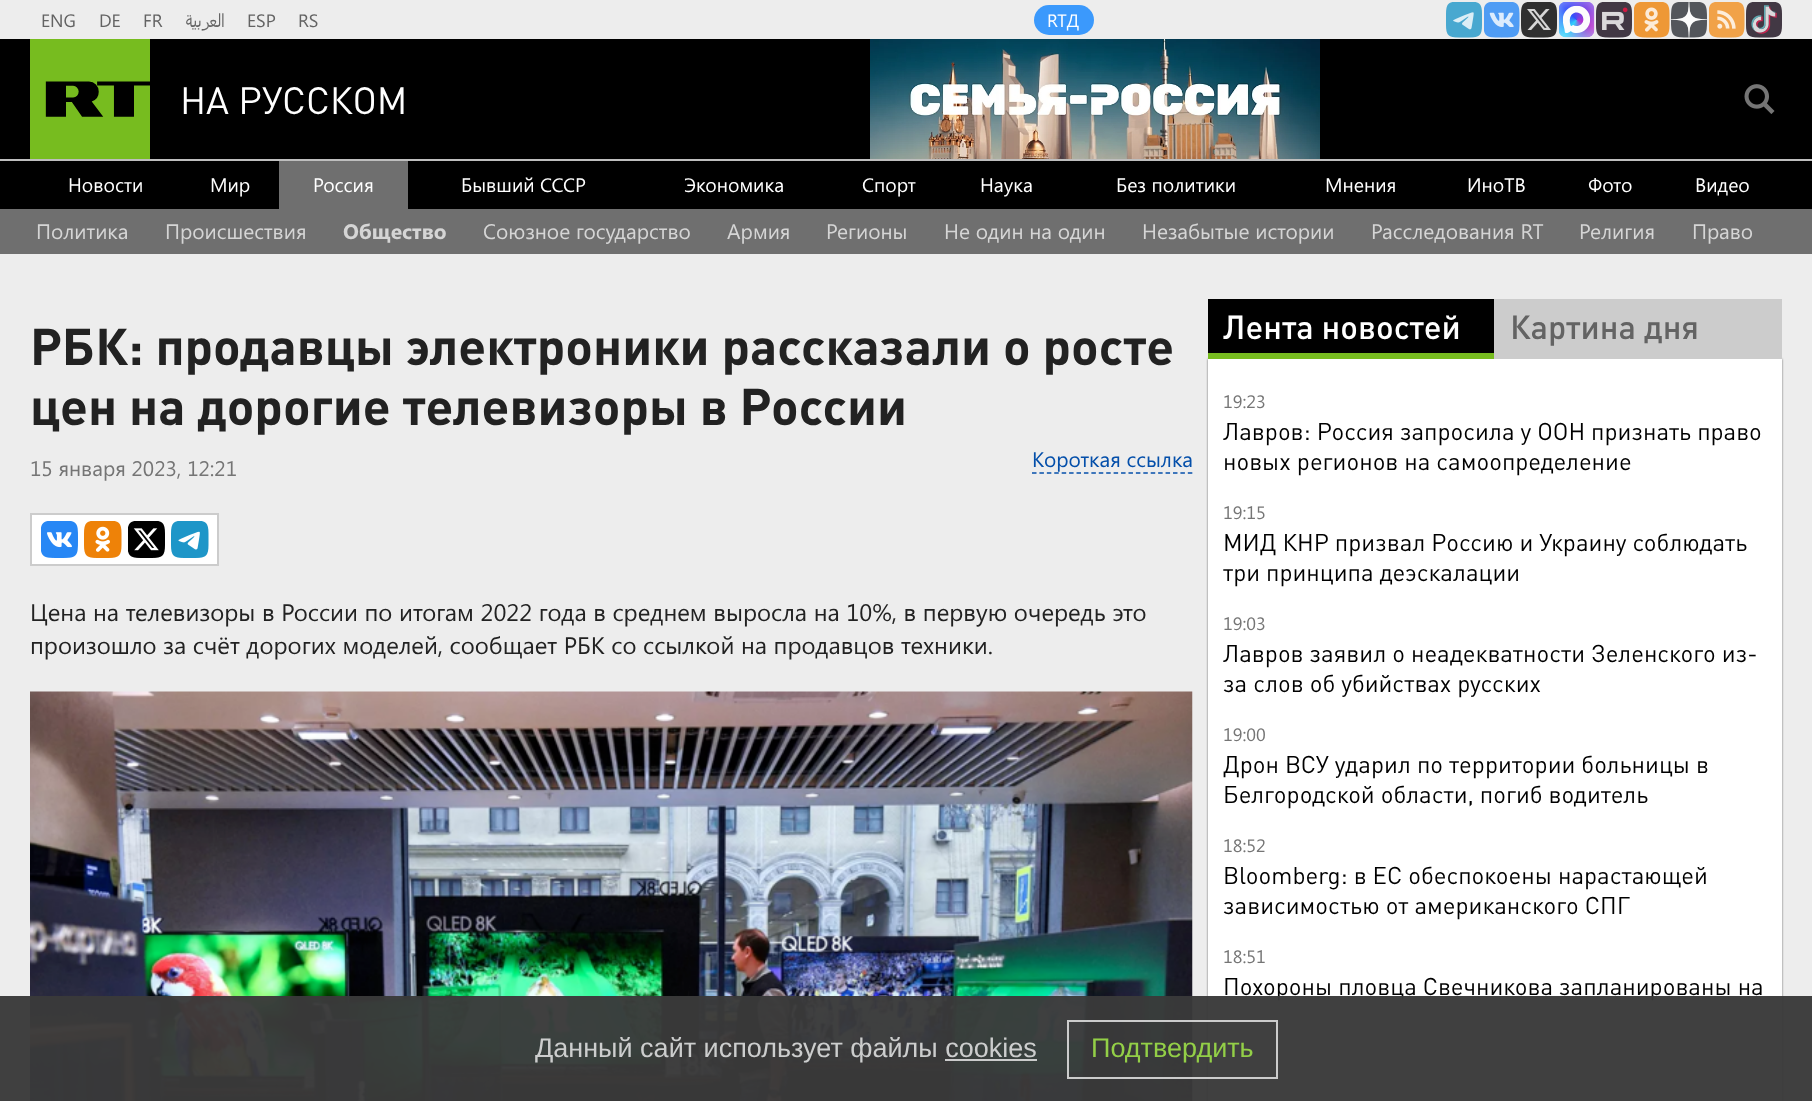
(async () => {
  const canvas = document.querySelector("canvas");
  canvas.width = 1812;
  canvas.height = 1101;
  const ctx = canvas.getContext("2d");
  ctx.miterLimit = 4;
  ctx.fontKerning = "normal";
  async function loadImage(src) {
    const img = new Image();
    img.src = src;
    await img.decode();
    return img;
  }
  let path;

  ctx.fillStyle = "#000000";
  ctx.fillRect(0, 0, 1812, 1101);
  ctx.fillStyle = "#ededed";
  ctx.fillRect(0, 0, 1812, 39);
  ctx.fillStyle = "#3b99fc";
  ctx.beginPath();
  ctx.roundRect(1034, 5, 60, 30, 15);
  ctx.fill();
  ctx.drawImage(await loadImage("img/1.png"), 1446, 2, 36, 36);
  ctx.drawImage(await loadImage("img/2.png"), 1484, 2, 36, 36);
  ctx.drawImage(await loadImage("img/3.png"), 1521, 2, 36, 36);
  ctx.drawImage(await loadImage("img/4.png"), 1559, 2, 36, 36);
  ctx.drawImage(await loadImage("img/5.png"), 1596, 2, 36, 36);
  ctx.drawImage(await loadImage("img/6.png"), 1634, 2, 36, 36);
  ctx.drawImage(await loadImage("img/7.png"), 1671, 2, 36, 36);
  ctx.drawImage(await loadImage("img/8.png"), 1709, 2, 36, 36);
  ctx.drawImage(await loadImage("img/9.png"), 1746, 2, 36, 36);
  ctx.fillStyle = "#bebebe";
  ctx.fillRect(0, 159, 1812, 2);
  ctx.fillStyle = "#77bc1f";
  ctx.fillRect(30, 39, 120, 120);
  ctx.drawImage(await loadImage("img/10.png"), 45, 81, 105, 36);
  ctx.drawImage(await loadImage("img/11.png"), 870, 39, 450, 120);
  ctx.drawImage(await loadImage("img/12.png"), 1744, 84, 31, 30);
  for (const [x, y, w, h, color] of [
    [279, 161, 129, 48, "#6f6f6f"],
    [0, 209, 1812, 45, "#6f6f6f"],
    [0, 254, 1812, 847, "#ededed"],
  ]) {
    ctx.fillStyle = color;
    ctx.fillRect(x, y, w, h);
  }
  path = new Path2D("M1032 473H1192.5");
  ctx.strokeStyle = "#044faa";
  ctx.lineWidth = 1.5;
  ctx.setLineDash([4.5, 2.92]);
  ctx.stroke(path);
  ctx.fillStyle = "#ffffff";
  ctx.beginPath();
  ctx.rect(31, 514, 187, 51);
  ctx.fill();
  ctx.strokeStyle = "#cccccc";
  ctx.lineWidth = 2;
  ctx.setLineDash([]);
  ctx.stroke();
  ctx.drawImage(await loadImage("img/13.png"), 41, 521, 37, 37);
  ctx.drawImage(await loadImage("img/14.png"), 84, 521, 38, 37);
  ctx.drawImage(await loadImage("img/15.png"), 128, 521, 37, 37);
  ctx.drawImage(await loadImage("img/16.png"), 171, 521, 38, 37);
  ctx.drawImage(await loadImage("img/17.png"), 30, 691, 1163, 410);
  ctx.fillStyle = "#000000";
  ctx.fillRect(1208, 299, 286, 54);
  ctx.fillStyle = "#666666";
  ctx.filter = "blur(1px)";
  ctx.beginPath();
  ctx.rect(1208, 359, 574, 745);
  ctx.fill();
  ctx.filter = "none";
  for (const [x, y, w, h, color] of [
    [1208, 353, 286, 6, "#77bc1f"],
    [1494, 299, 288, 60, "#cccccc"],
    [1208, 359, 574, 742, "#ffffff"],
  ]) {
    ctx.fillStyle = color;
    ctx.fillRect(x, y, w, h);
  }
  ctx.font = "18px Segoe UI";
  ctx.fillStyle = "#636363";
  for (const [text, x, y] of [
    ["ENG", 41, 27],
    ["DE", 99, 27],
    ["FR", 143, 27],
  ]) {
    ctx.fillText(text, x, y);
  }
  ctx.direction = "rtl";
  ctx.fillText("العربية", 225, 27);
  ctx.direction = "ltr";
  ctx.fillText("ESP", 247, 27);
  ctx.fillText("RS", 298, 27);
  ctx.fillStyle = "#ffffff";
  ctx.fillText("RTД", 1047, 27);
  ctx.font = "37.5px DIN";
  ctx.fillText("НА РУССКОМ", 180, 114);
  ctx.font = "19.5px Segoe UI";
  for (const [text, x, y] of [
    ["Новости", 68, 192],
    ["Мир", 210, 192],
    ["Россия", 313, 192],
    ["Бывший СССР", 461, 192],
    ["Экономика", 684, 192],
    ["Спорт", 862, 192],
    ["Наука", 980, 192],
    ["Без политики", 1116, 192],
    ["Мнения", 1325, 192],
    ["ИноТВ", 1467, 192],
    ["Фото", 1588, 192],
    ["Видео", 1695, 192],
  ]) {
    ctx.fillText(text, x, y);
  }
  ctx.font = "21px Segoe UI";
  ctx.fillStyle = "#d5d5d5";
  ctx.fillText("Политика", 36, 239);
  ctx.fillText("Происшествия", 165, 239);
  ctx.font = "bold 21px Segoe UI";
  ctx.fillText("Общество", 343, 239);
  ctx.font = "21px Segoe UI";
  for (const [text, x, y] of [
    ["Союзное государство", 483, 239],
    ["Армия", 727, 239],
    ["Регионы", 826, 239],
    ["Не один на один", 944, 239],
    ["Незабытые истории", 1142, 239],
    ["Расследования RT", 1371, 239],
    ["Религия", 1579, 239],
    ["Право", 1692, 239],
  ]) {
    ctx.fillText(text, x, y);
  }
  ctx.font = "bold 51px DIN";
  ctx.fillStyle = "#222222";
  ctx.fillText("РБК: продавцы электроники рассказали о росте", 30, 365);
  ctx.fillText("цен на дорогие телевизоры в России", 30, 425);
  ctx.font = "21px Segoe UI";
  ctx.fillStyle = "#757575";
  ctx.fillText("15 января 2023, 12:21", 30, 476);
  ctx.fillStyle = "#044faa";
  ctx.fillText("Короткая ссылка", 1032, 467);
  ctx.font = "24px Segoe UI";
  ctx.fillStyle = "#222222";
  ctx.fillText("Цена на телевизоры в России по итогам 2022 года в среднем выросла на 10%, в первую очередь это", 30, 621);
  ctx.fillText("произошло за счёт дорогих моделей, сообщает РБК со ссылкой на продавцов техники.", 30, 654);
  ctx.font = "500 33px DIN";
  ctx.fillStyle = "#ffffff";
  ctx.fillText("Лента новостей", 1223, 339);
  ctx.fillStyle = "#636363";
  ctx.fillText("Картина дня", 1510, 339);
  ctx.font = "18px Segoe UI";
  ctx.fillStyle = "#757575";
  ctx.fillText("19:23", 1223, 408);
  ctx.font = "24px DIN";
  ctx.fillStyle = "#000000";
  ctx.fillText("Лавров: Россия запросила у ООН признать право", 1223, 440);
  ctx.fillText("новых регионов на самоопределение", 1223, 470);
  ctx.font = "18px Segoe UI";
  ctx.fillStyle = "#757575";
  ctx.fillText("19:15", 1223, 519);
  ctx.font = "24px DIN";
  ctx.fillStyle = "#000000";
  ctx.fillText("МИД КНР призвал Россию и Украину соблюдать", 1223, 551);
  ctx.fillText("три принципа деэскалации", 1223, 581);
  ctx.font = "18px Segoe UI";
  ctx.fillStyle = "#757575";
  ctx.fillText("19:03", 1223, 630);
  ctx.font = "24px DIN";
  ctx.fillStyle = "#000000";
  ctx.fillText("Лавров заявил о неадекватности Зеленского из-", 1223, 662);
  ctx.fillText("за слов об убийствах русских", 1223, 692);
  ctx.font = "18px Segoe UI";
  ctx.fillStyle = "#757575";
  ctx.fillText("19:00", 1223, 741);
  ctx.font = "24px DIN";
  ctx.fillStyle = "#000000";
  ctx.fillText("Дрон ВСУ ударил по территории больницы в", 1223, 773);
  ctx.fillText("Белгородской области, погиб водитель", 1223, 803);
  ctx.font = "18px Segoe UI";
  ctx.fillStyle = "#757575";
  ctx.fillText("18:52", 1223, 852);
  ctx.font = "24px DIN";
  ctx.fillStyle = "#000000";
  ctx.fillText("Bloomberg: в ЕС обеспокоены нарастающей", 1223, 884);
  ctx.fillText("зависимостью от американского СПГ", 1223, 914);
  ctx.font = "18px Segoe UI";
  ctx.fillStyle = "#757575";
  ctx.fillText("18:51", 1223, 963);
  ctx.font = "24px DIN";
  ctx.fillStyle = "#000000";
  ctx.fillText("Похороны пловца Свечникова запланированы на", 1223, 995);
  ctx.fillStyle = "rgba(58, 58, 58, 0.97)";
  ctx.fillRect(0, 996, 1812, 105);
  ctx.font = "27px Liberation Sans";
  ctx.fillStyle = "#cccdcd";
  ctx.fillText("Данный сайт использует файлы cookies", 535, 1057);
  ctx.fillStyle = "rgba(209, 209, 209, 0.97)";
  ctx.fillRect(945, 1059, 92, 2);
  ctx.strokeStyle = "rgba(209, 209, 209, 0.97)";
  ctx.strokeRect(1068, 1021, 209, 57);
  ctx.fillStyle = "#93cf47";
  ctx.fillText("Подтвердить", 1091, 1057);
})();
